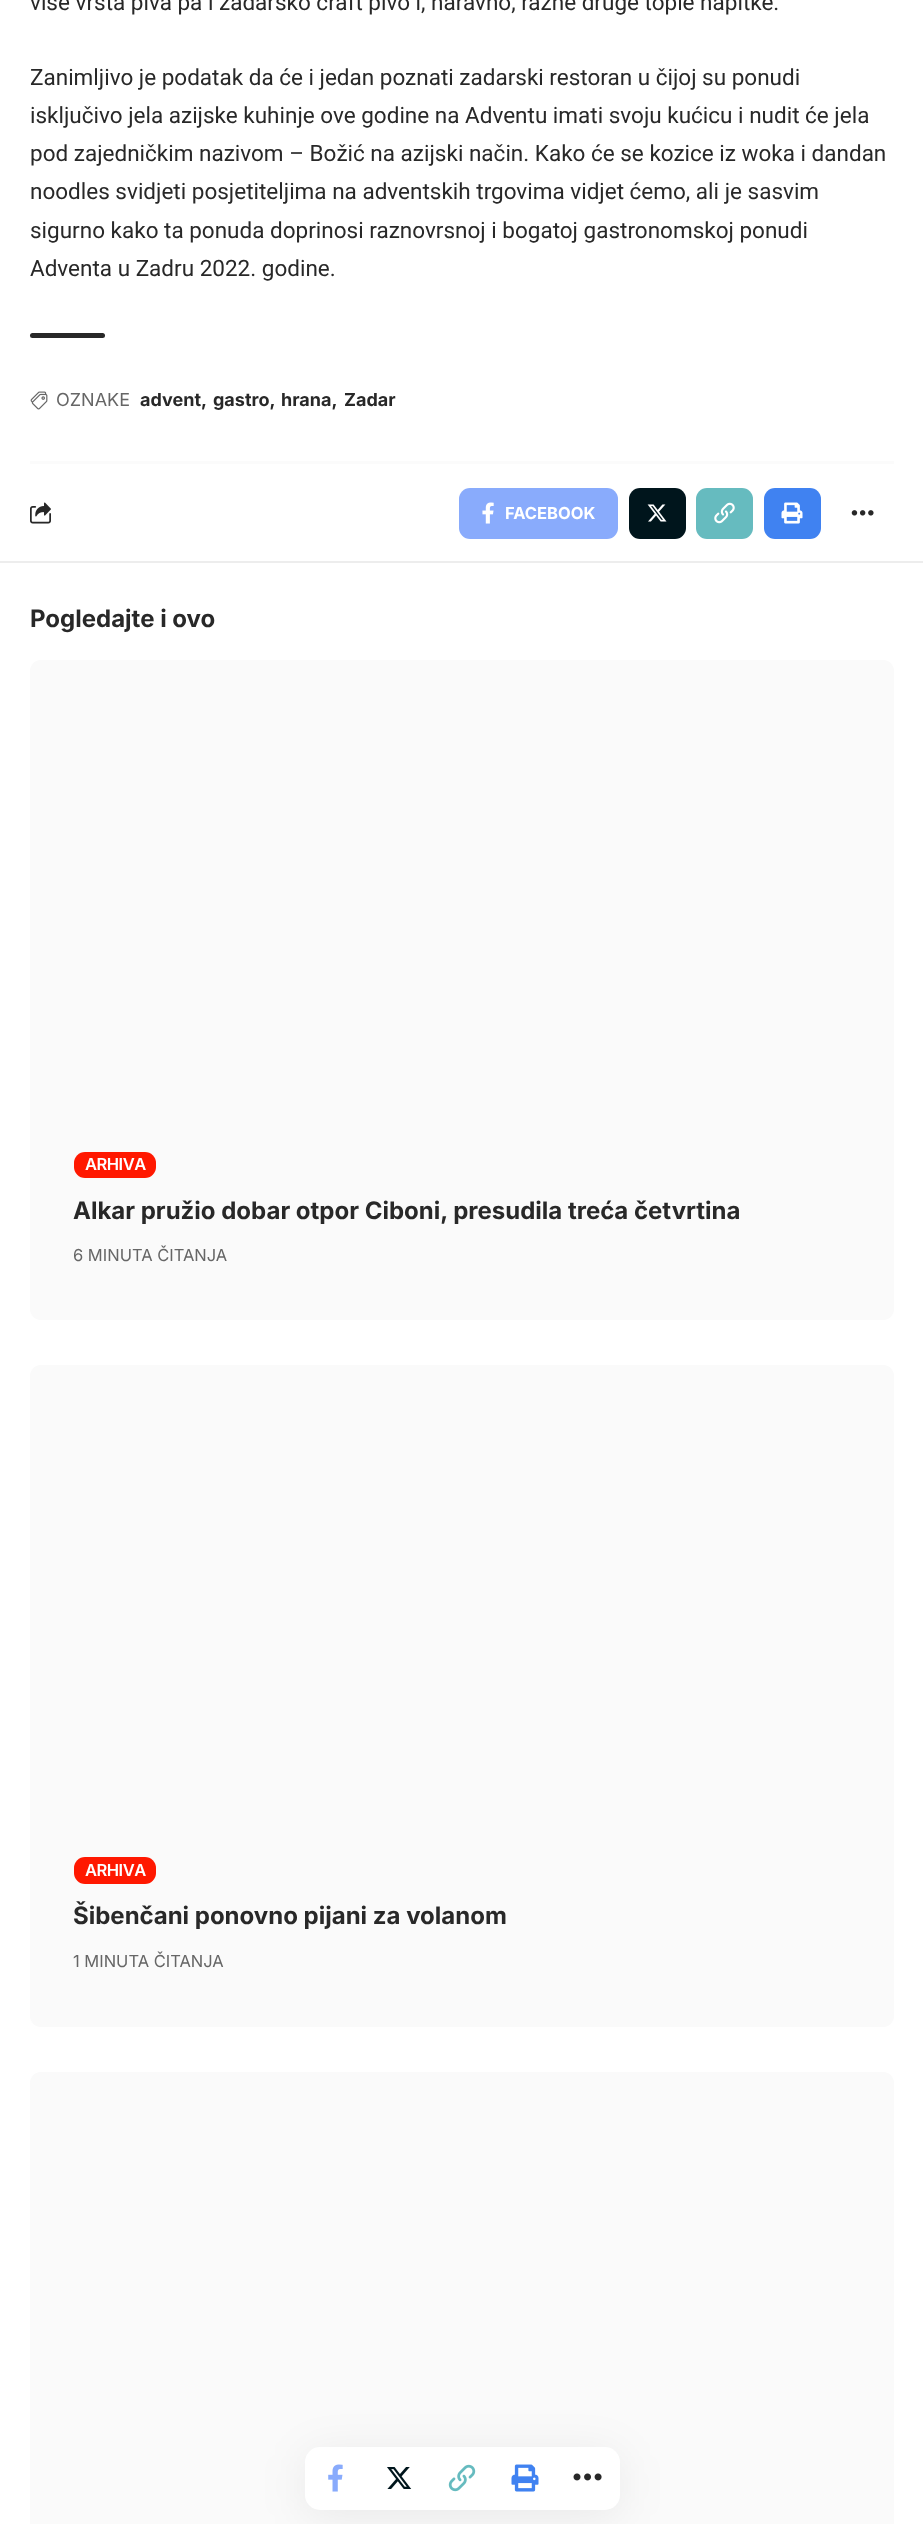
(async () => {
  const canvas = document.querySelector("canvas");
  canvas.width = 923;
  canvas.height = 2524;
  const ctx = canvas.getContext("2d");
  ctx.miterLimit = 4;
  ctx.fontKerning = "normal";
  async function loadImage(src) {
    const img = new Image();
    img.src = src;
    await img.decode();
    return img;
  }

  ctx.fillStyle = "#ffffff";
  ctx.fillRect(0, 0, 923, 2524);
  ctx.fillStyle = "#282828";
  ctx.beginPath();
  ctx.roundRect(30, 333, 75, 5, 2.5);
  ctx.fill();
  ctx.drawImage(await loadImage("img/1.png"), 30, 391, 18, 19);
  ctx.fillStyle = "#fafafa";
  ctx.beginPath();
  ctx.roundRect(30, 2072, 864, 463, 11);
  ctx.fill();
  ctx.fillStyle = "rgba(0, 0, 0, 0.07)";
  ctx.filter = "blur(22.5px)";
  ctx.beginPath();
  ctx.roundRect(305, 2454, 315, 63, 15);
  ctx.fill();
  ctx.filter = "none";
  ctx.fillStyle = "#ffffff";
  ctx.beginPath();
  ctx.roundRect(305, 2447, 315, 63, 15);
  ctx.fill();
  ctx.drawImage(await loadImage("img/2.png"), 328, 2464, 15, 28);
  ctx.drawImage(await loadImage("img/3.png"), 387, 2467, 25, 22);
  ctx.drawImage(await loadImage("img/4.png"), 448, 2464, 28, 28);
  ctx.drawImage(await loadImage("img/5.png"), 511, 2464, 28, 28);
  ctx.drawImage(await loadImage("img/6.png"), 573, 2473, 29, 8);
  ctx.fillStyle = "#fbfbfb";
  ctx.fillRect(30, 461, 864, 3);
  ctx.drawImage(await loadImage("img/7.png"), 30, 502, 21, 22);
  ctx.fillStyle = "#89abfc";
  ctx.beginPath();
  ctx.roundRect(459, 488, 159, 51, 11);
  ctx.fill();
  ctx.drawImage(await loadImage("img/8.png"), 482, 502, 12, 22);
  ctx.fillStyle = "#00151c";
  ctx.beginPath();
  ctx.roundRect(629, 488, 57, 51, 11);
  ctx.fill();
  ctx.drawImage(await loadImage("img/9.png"), 647, 504, 20, 18);
  ctx.fillStyle = "#66bbbf";
  ctx.beginPath();
  ctx.roundRect(696, 488, 57, 51, 11);
  ctx.fill();
  ctx.drawImage(await loadImage("img/10.png"), 714, 502, 21, 22);
  ctx.fillStyle = "#4082f1";
  ctx.beginPath();
  ctx.roundRect(764, 488, 57, 51, 11);
  ctx.fill();
  ctx.drawImage(await loadImage("img/11.png"), 781, 502, 22, 22);
  ctx.drawImage(await loadImage("img/12.png"), 851, 510, 23, 6);
  ctx.fillStyle = "#ededed";
  ctx.fillRect(0, 561, 923, 2);
  ctx.fillStyle = "#fafafa";
  ctx.beginPath();
  ctx.roundRect(30, 660, 864, 660, 11);
  ctx.fill();
  ctx.fillStyle = "#ff1800";
  ctx.beginPath();
  ctx.roundRect(74, 1152, 82, 26, 11);
  ctx.fill();
  ctx.fillStyle = "#fafafa";
  ctx.beginPath();
  ctx.roundRect(30, 1365, 864, 662, 11);
  ctx.fill();
  ctx.fillStyle = "#ff1800";
  ctx.beginPath();
  ctx.roundRect(74, 1857, 82, 27, 11);
  ctx.fill();
  ctx.font = "22.5px Roboto";
  ctx.fillStyle = "#282828";
  for (const [text, x, y] of [
    ["više vrsta piva pa i zadarsko craft pivo i, naravno, razne druge tople napitke.", 30, 10],
    ["Zanimljivo je podatak da će i jedan poznati zadarski restoran u čijoj su ponudi", 30, 85],
    ["isključivo jela azijske kuhinje ove godine na Adventu imati svoju kućicu i nudit će jela", 30, 123],
    ["pod zajedničkim nazivom – Božić na azijski način. Kako će se kozice iz woka i dandan", 30, 161],
    ["noodles svidjeti posjetiteljima na adventskih trgovima vidjet ćemo, ali je sasvim", 30, 199],
    ["sigurno kako ta ponuda doprinosi raznovrsnoj i bogatoj gastronomskoj ponudi", 30, 238],
    ["Adventa u Zadru 2022. godine.", 30, 276],
  ]) {
    ctx.fillText(text, x, y);
  }
  ctx.font = "18px Inter";
  ctx.fillStyle = "#666666";
  ctx.fillText("OZNAKE", 56, 406);
  ctx.font = "bold 18px Inter";
  ctx.fillStyle = "#282828";
  for (const [text, x, y] of [
    ["advent,", 140, 406],
    ["gastro,", 213, 406],
    ["hrana,", 281, 406],
    ["Zadar", 344, 406],
  ]) {
    ctx.fillText(text, x, y);
  }
  ctx.font = "bold 16.5px Inter";
  ctx.fillStyle = "#ffffff";
  ctx.fillText("FACEBOOK", 505, 519);
  ctx.font = "bold 24px Inter";
  ctx.fillStyle = "#282828";
  ctx.fillText("Pogledajte i ovo", 30, 627);
  ctx.letterSpacing = "-0.5px";
  ctx.font = "600 16.5px Inter";
  ctx.fillStyle = "#ffffff";
  ctx.fillText("ARHIVA", 85, 1170);
  ctx.letterSpacing = "0px";
  ctx.font = "bold 24px Inter";
  ctx.fillStyle = "#282828";
  ctx.fillText("Alkar pružio dobar otpor Ciboni, presudila treća četvrtina", 73, 1219);
  ctx.font = "16.5px Inter";
  ctx.fillStyle = "#666666";
  ctx.fillText("6 MINUTA ČITANJA", 73, 1261);
  ctx.letterSpacing = "-0.5px";
  ctx.font = "600 16.5px Inter";
  ctx.fillStyle = "#ffffff";
  ctx.fillText("ARHIVA", 85, 1876);
  ctx.letterSpacing = "0px";
  ctx.font = "bold 24px Inter";
  ctx.fillStyle = "#282828";
  ctx.fillText("Šibenčani ponovno pijani za volanom", 73, 1924);
  ctx.font = "16.5px Inter";
  ctx.fillStyle = "#666666";
  ctx.fillText("1 MINUTA ČITANJA", 73, 1967);
})();
